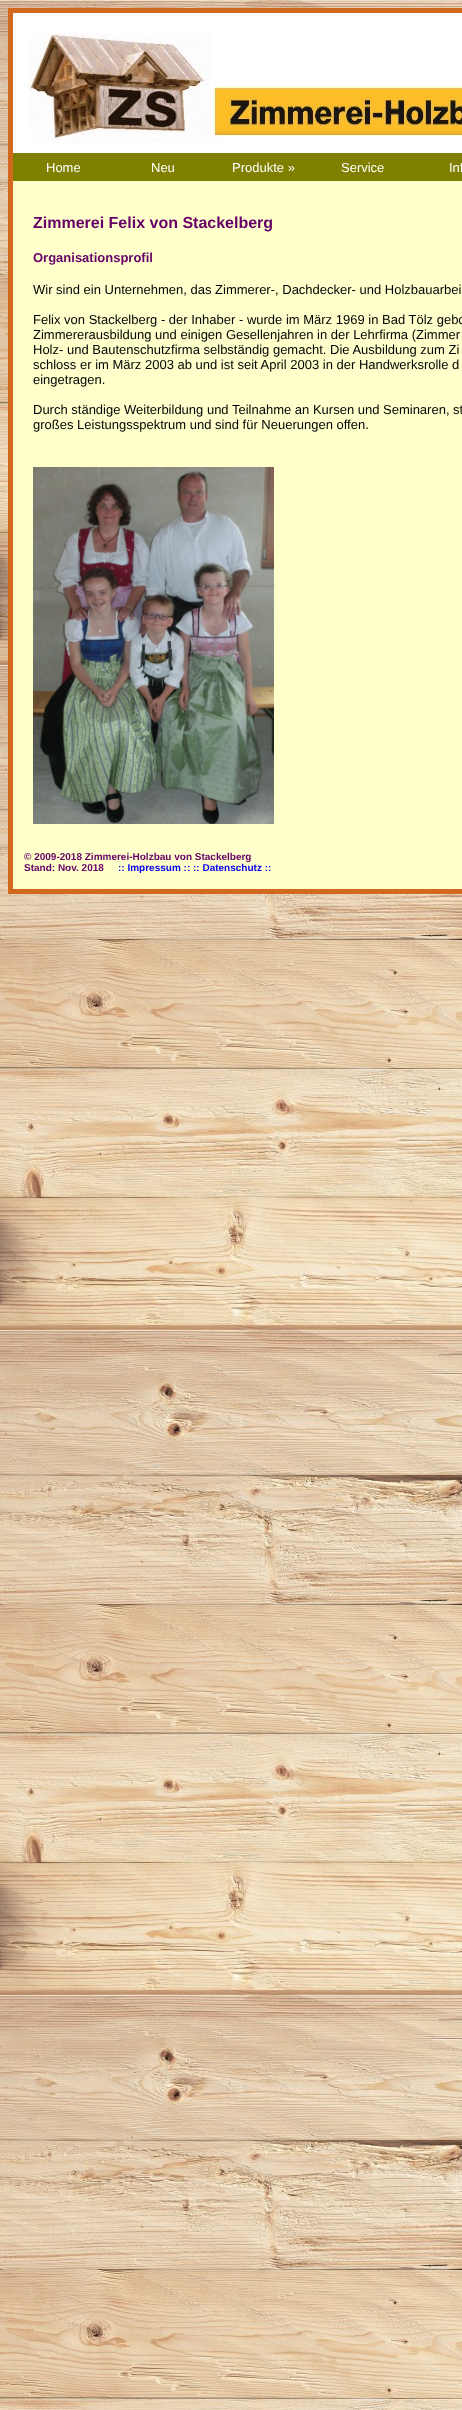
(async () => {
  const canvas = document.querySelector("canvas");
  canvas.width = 462;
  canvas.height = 2410;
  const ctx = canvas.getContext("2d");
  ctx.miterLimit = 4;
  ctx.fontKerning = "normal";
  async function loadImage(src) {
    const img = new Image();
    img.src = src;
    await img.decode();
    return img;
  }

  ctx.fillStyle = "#ffffff";
  ctx.fillRect(0, 0, 462, 2410);
  ctx.drawImage(await loadImage("img/1.png"), 0, 0, 462, 2410);
  ctx.fillStyle = "#ffffcc";
  ctx.fillRect(13, 181, 449, 708);
  ctx.strokeStyle = "#d2691e";
  ctx.lineWidth = 5;
  ctx.strokeRect(10.5, 10.5, 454, 881);
  ctx.fillStyle = "#ffffff";
  ctx.fillRect(13, 13, 449, 140);
  ctx.drawImage(await loadImage("img/2.png"), 28, 33, 434, 111);
  ctx.fillStyle = "#808000";
  ctx.fillRect(13, 153, 449, 28);
  ctx.drawImage(await loadImage("img/3.png"), 33, 467, 241, 357);
  ctx.font = "13px Liberation Sans";
  ctx.fillStyle = "#ffffff";
  for (const [text, x, y] of [
    ["Home", 46, 172],
    ["Neu", 151, 172],
    ["Produkte »", 232, 172],
    ["Service", 341, 172],
    ["Inf", 449, 172],
  ]) {
    ctx.fillText(text, x, y);
  }
  ctx.font = "bold 16px Liberation Sans";
  ctx.fillStyle = "#660066";
  ctx.fillText("Zimmerei Felix von Stackelberg", 33, 228);
  ctx.font = "bold 13px Liberation Sans";
  ctx.fillText("Organisationsprofil", 33, 262);
  ctx.font = "13px Liberation Sans";
  ctx.fillStyle = "#030303";
  for (const [text, x, y] of [
    ["Wir sind ein Unternehmen, das Zimmerer-, Dachdecker- und Holzbauarbei", 33, 294],
    ["Felix von Stackelberg - der Inhaber - wurde im März 1969 in Bad Tölz gebo", 33, 324],
    ["Zimmererausbildung und einigen Gesellenjahren in der Lehrfirma (Zimmer", 33, 339],
    ["Holz- und Bautenschutzfirma selbständig gemacht. Die Ausbildung zum Zi", 33, 354],
    ["schloss er im März 2003 ab und ist seit April 2003 in der Handwerksrolle d", 33, 369],
    ["eingetragen.", 33, 384],
    ["Durch ständige Weiterbildung und Teilnahme an Kursen und Seminaren, st", 33, 414],
    ["großes Leistungsspektrum und sind für Neuerungen offen.", 33, 429],
  ]) {
    ctx.fillText(text, x, y);
  }
  ctx.font = "bold 10px Liberation Sans";
  ctx.fillStyle = "#660066";
  ctx.fillText("© 2009-2018 Zimmerei-Holzbau von Stackelberg", 24, 860);
  ctx.fillText("Stand: Nov. 2018", 24, 871);
  ctx.fillStyle = "#0000ee";
  ctx.fillText(":: Impressum :: :: Datenschutz ::", 118, 871);
})();
